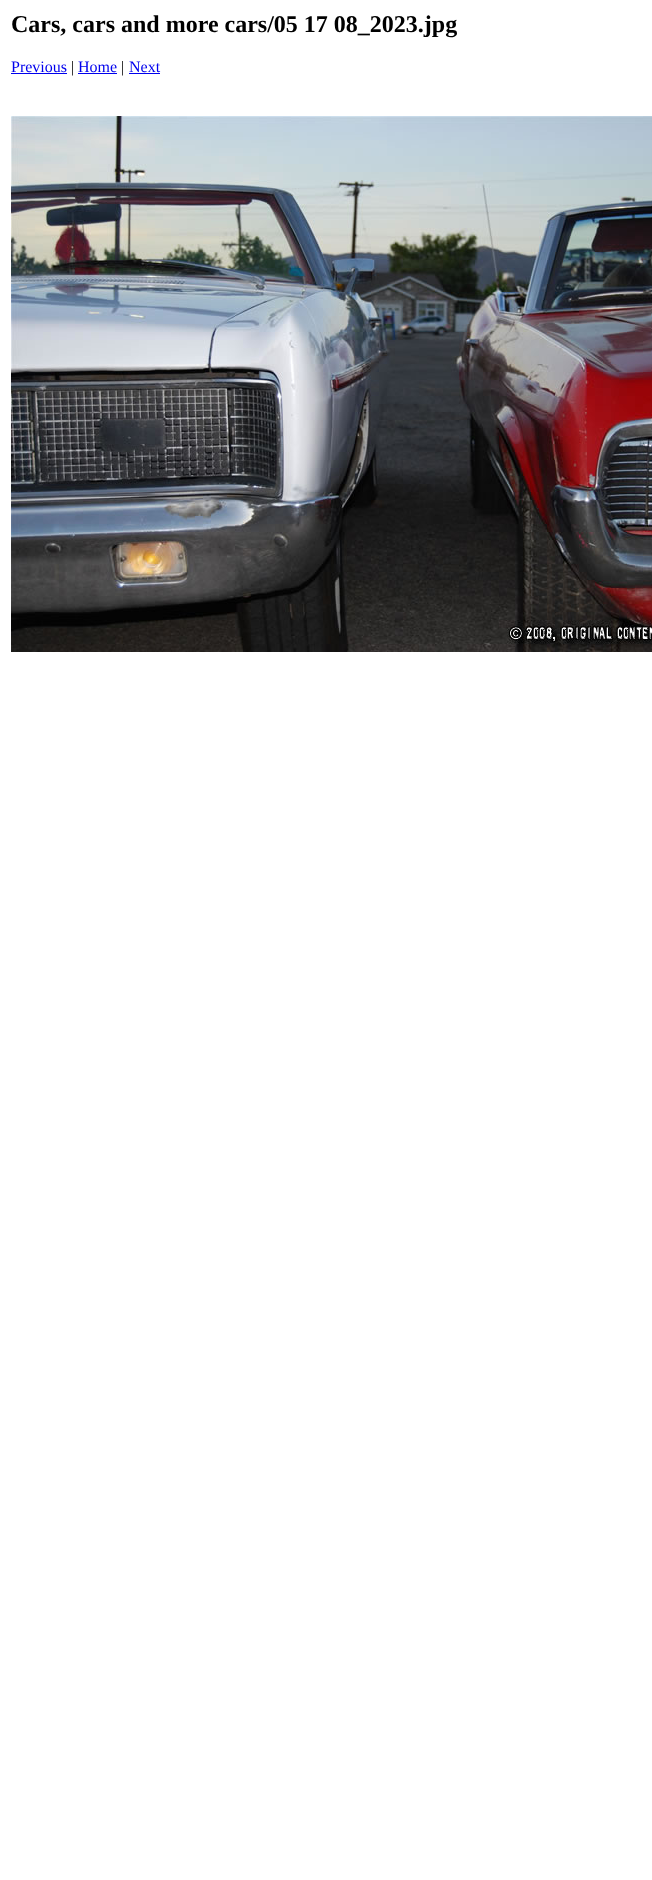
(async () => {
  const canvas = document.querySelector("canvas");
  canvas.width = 652;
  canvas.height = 1880;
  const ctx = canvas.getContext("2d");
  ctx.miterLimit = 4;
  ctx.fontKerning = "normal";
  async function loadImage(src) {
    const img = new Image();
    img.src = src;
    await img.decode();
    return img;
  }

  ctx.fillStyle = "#ffffff";
  ctx.fillRect(0, 0, 652, 1880);
  for (const [x, y, w, h, color] of [
    [11, 73, 56, 1, "#0000ee"],
    [78, 73, 39, 1, "#0000ee"],
    [129, 73, 31, 1, "#0000ee"],
  ]) {
    ctx.fillStyle = color;
    ctx.fillRect(x, y, w, h);
  }
  ctx.drawImage(await loadImage("img/1.png"), 11, 116, 641, 536);
  ctx.font = "bold 24px Liberation Serif";
  ctx.fillStyle = "#000000";
  ctx.fillText("Cars, cars and more cars/05 17 08_2023.jpg", 11, 32);
  ctx.font = "16px Liberation Serif";
  ctx.fillStyle = "#0000ee";
  ctx.fillText("Previous", 11, 72);
  ctx.fillStyle = "#000000";
  ctx.fillText("|", 71, 72);
  ctx.fillStyle = "#0000ee";
  ctx.fillText("Home", 78, 72);
  ctx.fillStyle = "#000000";
  ctx.fillText("|", 121, 72);
  ctx.fillStyle = "#0000ee";
  ctx.fillText("Next", 129, 72);
})();
